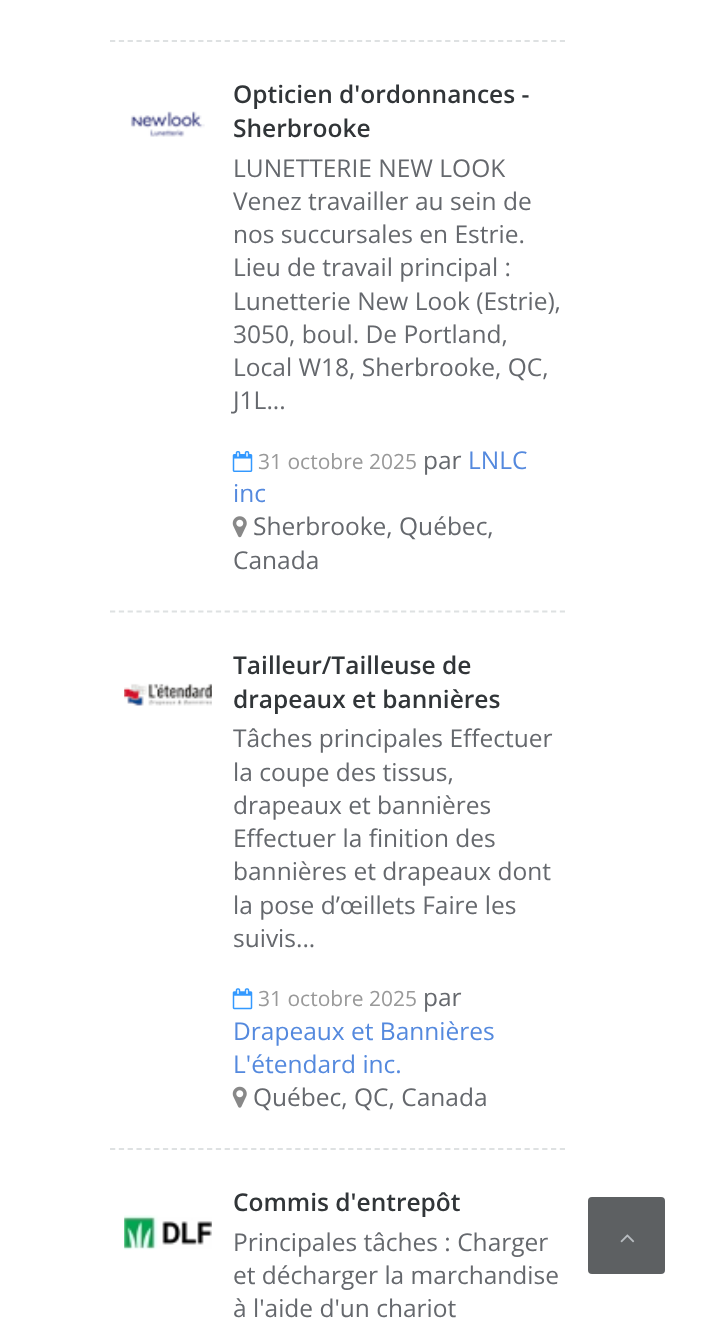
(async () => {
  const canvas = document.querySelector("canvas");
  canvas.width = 717;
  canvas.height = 1326;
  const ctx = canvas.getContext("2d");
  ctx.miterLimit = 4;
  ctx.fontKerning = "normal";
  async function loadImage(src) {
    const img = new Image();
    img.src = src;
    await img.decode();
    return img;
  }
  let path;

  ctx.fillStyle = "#ffffff";
  ctx.fillRect(0, 0, 717, 1326);
  path = new Path2D("M110 41H565");
  ctx.strokeStyle = "#dee1e2";
  ctx.lineWidth = 1.8;
  ctx.setLineDash([5.25, 3.57]);
  ctx.stroke(path);
  path = new Path2D("M110 611.5H565");
  ctx.stroke(path);
  ctx.drawImage(await loadImage("img/1.png"), 130, 111, 75, 26);
  ctx.drawImage(await loadImage("img/2.png"), 232, 451, 21, 21);
  ctx.drawImage(await loadImage("img/3.png"), 232, 516, 15, 22);
  path = new Path2D("M110 1149H565");
  ctx.stroke(path);
  ctx.drawImage(await loadImage("img/4.png"), 124, 683, 88, 23);
  ctx.drawImage(await loadImage("img/5.png"), 232, 988, 21, 22);
  ctx.drawImage(await loadImage("img/6.png"), 232, 1086, 15, 22);
  ctx.drawImage(await loadImage("img/7.png"), 124, 1215, 88, 35);
  ctx.fillStyle = "#5d6062";
  ctx.beginPath();
  ctx.roundRect(588, 1197, 77, 77, 4);
  ctx.fill();
  ctx.drawImage(await loadImage("img/8.png"), 620, 1234, 15, 9);
  ctx.font = "600 24.5px Open Sans";
  ctx.fillStyle = "#313538";
  ctx.fillText("Opticien d'ordonnances -", 233, 103);
  ctx.fillText("Sherbrooke", 233, 137);
  ctx.font = "24.5px Open Sans";
  ctx.fillStyle = "#65686d";
  for (const [text, x, y] of [
    ["LUNETTERIE NEW LOOK", 233, 177],
    ["Venez travailler au sein de", 233, 210],
    ["nos succursales en Estrie.", 233, 243],
    ["Lieu de travail principal :", 233, 276],
    ["Lunetterie New Look (Estrie),", 233, 310],
    ["3050, boul. De Portland,", 233, 343],
    ["Local W18, Sherbrooke, QC,", 233, 376],
    ["J1L...", 233, 409],
  ]) {
    ctx.fillText(text, x, y);
  }
  ctx.font = "21px Open Sans";
  ctx.fillStyle = "#999999";
  ctx.fillText("31 octobre 2025", 258, 469);
  ctx.font = "24.5px Open Sans";
  ctx.fillStyle = "#65686d";
  ctx.fillText("par", 423, 469);
  ctx.fillStyle = "#5489de";
  ctx.fillText("LNLC", 468, 469);
  ctx.fillText("inc", 233, 502);
  ctx.fillStyle = "#65686d";
  ctx.fillText("Sherbrooke, Québec,", 253, 535);
  ctx.fillText("Canada", 233, 569);
  ctx.font = "600 24.5px Open Sans";
  ctx.fillStyle = "#313538";
  ctx.fillText("Tailleur/Tailleuse de", 233, 674);
  ctx.fillText("drapeaux et bannières", 233, 708);
  ctx.font = "24.5px Open Sans";
  ctx.fillStyle = "#65686d";
  for (const [text, x, y] of [
    ["Tâches principales Effectuer", 233, 747],
    ["la coupe des tissus,", 233, 781],
    ["drapeaux et bannières", 233, 814],
    ["Effectuer la finition des", 233, 847],
    ["bannières et drapeaux dont", 233, 880],
    ["la pose d’œillets Faire les", 233, 914],
    ["suivis...", 233, 947],
  ]) {
    ctx.fillText(text, x, y);
  }
  ctx.font = "21px Open Sans";
  ctx.fillStyle = "#999999";
  ctx.fillText("31 octobre 2025", 258, 1006);
  ctx.font = "24.5px Open Sans";
  ctx.fillStyle = "#65686d";
  ctx.fillText("par", 423, 1006);
  ctx.fillStyle = "#5489de";
  ctx.fillText("Drapeaux et Bannières", 233, 1040);
  ctx.fillText("L'étendard inc.", 233, 1073);
  ctx.fillStyle = "#65686d";
  ctx.fillText("Québec, QC, Canada", 253, 1106);
  ctx.font = "600 24.5px Open Sans";
  ctx.fillStyle = "#313538";
  ctx.fillText("Commis d'entrepôt", 233, 1211);
  ctx.font = "24.5px Open Sans";
  ctx.fillStyle = "#65686d";
  for (const [text, x, y] of [
    ["Principales tâches : Charger", 233, 1251],
    ["et décharger la marchandise", 233, 1284],
    ["à l'aide d'un chariot", 233, 1317],
  ]) {
    ctx.fillText(text, x, y);
  }
})();
